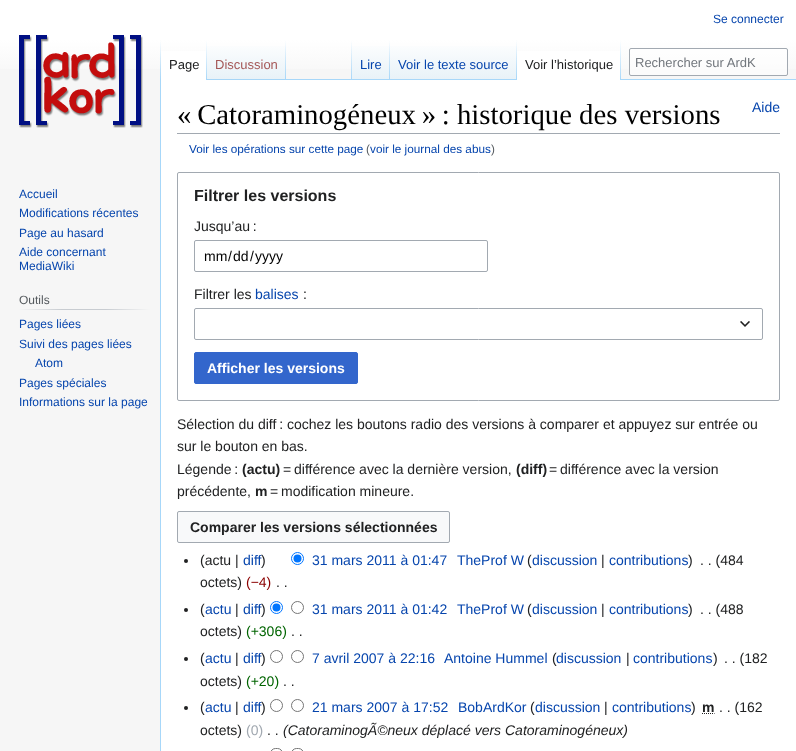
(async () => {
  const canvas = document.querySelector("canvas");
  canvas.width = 796;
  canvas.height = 751;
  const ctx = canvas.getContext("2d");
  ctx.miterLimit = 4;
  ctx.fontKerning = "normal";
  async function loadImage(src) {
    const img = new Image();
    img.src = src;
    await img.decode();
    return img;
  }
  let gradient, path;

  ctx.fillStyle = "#f6f6f6";
  ctx.fillRect(0, 0, 796, 751);
  gradient = ctx.createLinearGradient(398, 0, 398, 80);
  gradient.addColorStop(0.5, "#ffffff");
  gradient.addColorStop(1, "#f6f6f6");
  ctx.fillStyle = gradient;
  ctx.fillRect(0, 0, 796, 69);
  ctx.fillStyle = "#a7d7f9";
  ctx.fillRect(160, 79, 1, 672);
  gradient = ctx.createLinearGradient(161, 40, 161, 80);
  gradient.addColorStop(0, "rgba(167, 215, 249, 0)");
  gradient.addColorStop(1, "#a7d7f9");
  ctx.fillStyle = gradient;
  ctx.fillRect(160, 40, 1, 40);
  ctx.fillStyle = "#ffffff";
  ctx.fillRect(161, 51, 45, 29);
  gradient = ctx.createLinearGradient(207, 40, 207, 80);
  gradient.addColorStop(0, "#ffffff");
  gradient.addColorStop(1, "#a7d7f9");
  ctx.fillStyle = gradient;
  ctx.fillRect(206, 40, 1, 40);
  gradient = ctx.createLinearGradient(247, 80, 247, 40);
  gradient.addColorStop(0, "#77c1f6");
  gradient.addColorStop(0.03, "#e8f2f8");
  gradient.addColorStop(1, "#ffffff");
  ctx.fillStyle = gradient;
  ctx.fillRect(207, 46, 79, 34);
  gradient = ctx.createLinearGradient(286, 40, 286, 80);
  gradient.addColorStop(0, "rgba(167, 215, 249, 0)");
  gradient.addColorStop(1, "#a7d7f9");
  ctx.fillStyle = gradient;
  ctx.fillRect(285, 40, 1, 40);
  ctx.fillStyle = "#a7d7f9";
  ctx.fillRect(286, 79, 510, 1);
  gradient = ctx.createLinearGradient(352, 40, 352, 80);
  gradient.addColorStop(0, "rgba(167, 215, 249, 0)");
  gradient.addColorStop(1, "#a7d7f9");
  ctx.fillStyle = gradient;
  ctx.fillRect(351, 40, 1, 40);
  gradient = ctx.createLinearGradient(371, 80, 371, 40);
  gradient.addColorStop(0, "#77c1f6");
  gradient.addColorStop(0.03, "#e8f2f8");
  gradient.addColorStop(1, "#ffffff");
  ctx.fillStyle = gradient;
  ctx.fillRect(352, 46, 38, 33);
  gradient = ctx.createLinearGradient(390, 40, 390, 80);
  gradient.addColorStop(0, "rgba(167, 215, 249, 0)");
  gradient.addColorStop(1, "#a7d7f9");
  ctx.fillStyle = gradient;
  ctx.fillRect(389, 40, 1, 40);
  gradient = ctx.createLinearGradient(454, 80, 454, 40);
  gradient.addColorStop(0, "#77c1f6");
  gradient.addColorStop(0.03, "#e8f2f8");
  gradient.addColorStop(1, "#ffffff");
  ctx.fillStyle = gradient;
  ctx.fillRect(390, 46, 127, 33);
  gradient = ctx.createLinearGradient(517, 40, 517, 80);
  gradient.addColorStop(0, "rgba(167, 215, 249, 0)");
  gradient.addColorStop(1, "#a7d7f9");
  ctx.fillStyle = gradient;
  ctx.fillRect(516, 40, 1, 40);
  ctx.fillStyle = "#ffffff";
  ctx.fillRect(517, 51, 103, 29);
  gradient = ctx.createLinearGradient(621, 40, 621, 80);
  gradient.addColorStop(0, "#ffffff");
  gradient.addColorStop(1, "#a7d7f9");
  ctx.fillStyle = gradient;
  ctx.fillRect(620, 40, 1, 40);
  ctx.fillStyle = "rgba(255, 255, 255, 0.5)";
  ctx.beginPath();
  ctx.roundRect(629.5, 48.5, 158, 27, 1.5);
  ctx.fill();
  ctx.strokeStyle = "#a2a9b1";
  ctx.stroke();
  ctx.drawImage(await loadImage("img/1.png"), 19, 35, 124, 93);
  gradient = ctx.createLinearGradient(19, 310, 150, 310);
  gradient.addColorStop(0, "#f6f6f6");
  gradient.addColorStop(0.33, "#c8ccd1");
  gradient.addColorStop(0.66, "#c8ccd1");
  gradient.addColorStop(1, "#f6f6f6");
  ctx.fillStyle = gradient;
  ctx.fillRect(19, 309, 131, 1);
  ctx.fillStyle = "#ffffff";
  ctx.fillRect(161, 80, 635, 671);
  ctx.fillStyle = "#a2a9b1";
  ctx.fillRect(177, 133, 603, 1);
  ctx.beginPath();
  ctx.roundRect(177.5, 172.5, 602, 228, 1.5);
  ctx.stroke();
  ctx.beginPath();
  ctx.roundRect(194.5, 240.5, 293, 31, 1.5);
  ctx.stroke();
  ctx.beginPath();
  ctx.roundRect(194.5, 308.5, 568, 31, 1.5);
  ctx.stroke();
  ctx.drawImage(await loadImage("img/2.png"), 740, 321, 10, 6);
  ctx.fillStyle = "#3366cc";
  ctx.beginPath();
  ctx.roundRect(194.5, 352.5, 163, 31, 1.5);
  ctx.fill();
  ctx.strokeStyle = "#3366cc";
  ctx.stroke();
  ctx.fillStyle = "#f8f9fa";
  ctx.beginPath();
  ctx.roundRect(177.5, 511.5, 272, 31, 1.5);
  ctx.fill();
  ctx.strokeStyle = "#a2a9b1";
  ctx.stroke();
  ctx.fillStyle = "#202122";
  ctx.beginPath();
  ctx.arc(186, 561, 2, 0, Math.PI * 2);
  ctx.fill();
  ctx.beginPath();
  ctx.arc(297.5, 558.5, 6, 0, Math.PI * 2);
  ctx.strokeStyle = "#0075ff";
  ctx.stroke();
  ctx.fillStyle = "#0075ff";
  ctx.beginPath();
  ctx.arc(297.5, 558.5, 4, 0, Math.PI * 2);
  ctx.fill();
  ctx.fillStyle = "#202122";
  ctx.beginPath();
  ctx.arc(186, 610, 2, 0, Math.PI * 2);
  ctx.fill();
  ctx.beginPath();
  ctx.arc(276.5, 607.5, 6, 0, Math.PI * 2);
  ctx.stroke();
  ctx.fillStyle = "#0075ff";
  ctx.beginPath();
  ctx.arc(276.5, 607.5, 4, 0, Math.PI * 2);
  ctx.fill();
  ctx.beginPath();
  ctx.arc(297.5, 607.5, 6, 0, Math.PI * 2);
  ctx.strokeStyle = "#767676";
  ctx.stroke();
  ctx.fillStyle = "#202122";
  ctx.beginPath();
  ctx.arc(186, 659, 2, 0, Math.PI * 2);
  ctx.fill();
  ctx.beginPath();
  ctx.arc(276.5, 656.5, 6, 0, Math.PI * 2);
  ctx.stroke();
  ctx.beginPath();
  ctx.arc(297.5, 656.5, 6, 0, Math.PI * 2);
  ctx.stroke();
  ctx.beginPath();
  ctx.arc(186, 708, 2, 0, Math.PI * 2);
  ctx.fill();
  ctx.beginPath();
  ctx.arc(276.5, 705.5, 6, 0, Math.PI * 2);
  ctx.stroke();
  ctx.beginPath();
  ctx.arc(297.5, 705.5, 6, 0, Math.PI * 2);
  ctx.stroke();
  path = new Path2D("M702 713.5H714.5");
  ctx.strokeStyle = "#202122";
  ctx.setLineDash([1, 1]);
  ctx.stroke(path);
  ctx.beginPath();
  ctx.roundRect(270.5, 748.5, 12, 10, 6);
  ctx.strokeStyle = "#767676";
  ctx.setLineDash([]);
  ctx.stroke();
  ctx.beginPath();
  ctx.roundRect(291.5, 748.5, 12, 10, 6);
  ctx.stroke();
  ctx.font = "12px Liberation Sans";
  ctx.fillStyle = "#0645ad";
  ctx.fillText("Se connecter", 713, 23);
  ctx.font = "13px Liberation Sans";
  ctx.fillStyle = "#202122";
  ctx.fillText("Page", 169, 69);
  ctx.fillStyle = "#a55858";
  ctx.fillText("Discussion", 215, 69);
  ctx.fillStyle = "#0645ad";
  ctx.fillText("Lire", 360, 69);
  ctx.fillText("Voir le texte source", 398, 69);
  ctx.fillStyle = "#202122";
  ctx.fillText("Voir l’historique", 525, 69);
  ctx.fillStyle = "#72777d";
  ctx.fillText("Rechercher sur ArdK", 635, 67);
  ctx.font = "12px Liberation Sans";
  ctx.fillStyle = "#0645ad";
  for (const [text, x, y] of [
    ["Accueil", 19, 198],
    ["Modifications récentes", 19, 217],
    ["Page au hasard", 19, 237],
    ["Aide concernant", 19, 256],
    ["MediaWiki", 19, 270],
  ]) {
    ctx.fillText(text, x, y);
  }
  ctx.fillStyle = "#54595d";
  ctx.fillText("Outils", 19, 304);
  ctx.fillStyle = "#0645ad";
  for (const [text, x, y] of [
    ["Pages liées", 19, 328],
    ["Suivi des pages liées", 19, 348],
    ["Atom", 35, 367],
    ["Pages spéciales", 19, 387],
    ["Informations sur la page", 19, 406],
  ]) {
    ctx.fillText(text, x, y);
  }
  ctx.font = "28.75px Liberation Serif";
  ctx.fillStyle = "#000000";
  ctx.fillText("« Catoraminogéneux » : historique des versions", 177, 124);
  ctx.font = "14px Liberation Sans";
  ctx.fillStyle = "#0645ad";
  ctx.fillText("Aide", 752, 112);
  ctx.font = "11.75px Liberation Sans";
  ctx.fillText("Voir les opérations sur cette page", 189, 153);
  ctx.fillStyle = "#54595d";
  ctx.fillText("(", 366, 153);
  ctx.fillStyle = "#0645ad";
  ctx.fillText("voir le journal des abus", 370, 153);
  ctx.fillStyle = "#54595d";
  ctx.fillText(")", 491, 153);
  ctx.font = "bold 16px Liberation Sans";
  ctx.fillStyle = "#202122";
  ctx.fillText("Filtrer les versions", 194, 201);
  ctx.font = "14px Liberation Sans";
  ctx.fillText("Jusqu’au :", 194, 231);
  ctx.fillStyle = "#000000";
  for (const [text, x, y] of [
    ["mm", 204, 261],
    ["/", 228, 261],
    ["dd", 233, 261],
    ["/", 250, 261],
    ["yyyy", 255, 261],
  ]) {
    ctx.fillText(text, x, y);
  }
  ctx.fillStyle = "#202122";
  ctx.fillText("Filtrer les", 194, 299);
  ctx.fillStyle = "#0645ad";
  ctx.fillText("balises", 255, 299);
  ctx.fillStyle = "#202122";
  ctx.fillText(":", 303, 299);
  ctx.font = "bold 14px Liberation Sans";
  ctx.fillStyle = "#ffffff";
  ctx.fillText("Afficher les versions", 207, 373);
  ctx.font = "14px Liberation Sans";
  ctx.fillStyle = "#202122";
  for (const [text, x, y] of [
    ["Sélection du diff : cochez les boutons radio des versions à comparer et appuyez sur entrée ou", 177, 429],
    ["sur le bouton en bas.", 177, 451],
    ["Légende :", 177, 474],
  ]) {
    ctx.fillText(text, x, y);
  }
  ctx.font = "bold 14px Liberation Sans";
  ctx.fillText("(actu)", 242, 474);
  ctx.font = "14px Liberation Sans";
  ctx.fillText("= différence avec la dernière version,", 283, 474);
  ctx.font = "bold 14px Liberation Sans";
  ctx.fillText("(diff)", 516, 474);
  ctx.font = "14px Liberation Sans";
  ctx.fillText("= différence avec la version", 549, 474);
  ctx.fillText("précédente,", 177, 496);
  ctx.font = "bold 14px Liberation Sans";
  ctx.fillText("m", 255, 496);
  ctx.font = "14px Liberation Sans";
  ctx.fillText("= modification mineure.", 270, 496);
  ctx.font = "bold 14px Liberation Sans";
  ctx.fillText("Comparer les versions sélectionnées", 190, 532);
  ctx.font = "14px Liberation Sans";
  ctx.fillText("(actu |", 200, 565);
  ctx.fillStyle = "#0645ad";
  ctx.fillText("diff", 243, 565);
  ctx.fillStyle = "#202122";
  ctx.fillText(")", 261, 565);
  ctx.fillStyle = "#0645ad";
  ctx.fillText("31 mars 2011 à 01:47", 312, 565);
  ctx.fillText("TheProf W", 457, 565);
  ctx.fillStyle = "#202122";
  ctx.fillText("(", 527, 565);
  ctx.fillStyle = "#0645ad";
  ctx.fillText("discussion", 532, 565);
  ctx.fillStyle = "#202122";
  ctx.fillText("|", 601, 565);
  ctx.fillStyle = "#0645ad";
  ctx.fillText("contributions", 609, 565);
  ctx.fillStyle = "#202122";
  for (const [text, x, y] of [
    [")", 688, 565],
    [". . (484", 700, 565],
    ["octets)", 200, 587],
  ]) {
    ctx.fillText(text, x, y);
  }
  ctx.fillStyle = "#8b0000";
  ctx.fillText("(−4)", 246, 587);
  ctx.fillStyle = "#202122";
  ctx.fillText(". .", 276, 587);
  ctx.fillText("(", 200, 614);
  ctx.fillStyle = "#0645ad";
  ctx.fillText("actu", 205, 614);
  ctx.fillStyle = "#202122";
  ctx.fillText("|", 235, 614);
  ctx.fillStyle = "#0645ad";
  ctx.fillText("diff", 243, 614);
  ctx.fillStyle = "#202122";
  ctx.fillText(")", 261, 614);
  ctx.fillStyle = "#0645ad";
  ctx.fillText("31 mars 2011 à 01:42", 312, 614);
  ctx.fillText("TheProf W", 457, 614);
  ctx.fillStyle = "#202122";
  ctx.fillText("(", 527, 614);
  ctx.fillStyle = "#0645ad";
  ctx.fillText("discussion", 532, 614);
  ctx.fillStyle = "#202122";
  ctx.fillText("|", 601, 614);
  ctx.fillStyle = "#0645ad";
  ctx.fillText("contributions", 609, 614);
  ctx.fillStyle = "#202122";
  for (const [text, x, y] of [
    [")", 688, 614],
    [". . (488", 700, 614],
    ["octets)", 200, 636],
  ]) {
    ctx.fillText(text, x, y);
  }
  ctx.fillStyle = "#006400";
  ctx.fillText("(+306)", 246, 636);
  ctx.fillStyle = "#202122";
  ctx.fillText(". .", 291, 636);
  ctx.fillText("(", 200, 663);
  ctx.fillStyle = "#0645ad";
  ctx.fillText("actu", 205, 663);
  ctx.fillStyle = "#202122";
  ctx.fillText("|", 235, 663);
  ctx.fillStyle = "#0645ad";
  ctx.fillText("diff", 243, 663);
  ctx.fillStyle = "#202122";
  ctx.fillText(")", 261, 663);
  ctx.fillStyle = "#0645ad";
  ctx.fillText("7 avril 2007 à 22:16", 312, 663);
  ctx.fillText("Antoine Hummel", 444, 663);
  ctx.fillStyle = "#202122";
  ctx.fillText("(", 552, 663);
  ctx.fillStyle = "#0645ad";
  ctx.fillText("discussion", 556, 663);
  ctx.fillStyle = "#202122";
  ctx.fillText("|", 626, 663);
  ctx.fillStyle = "#0645ad";
  ctx.fillText("contributions", 633, 663);
  ctx.fillStyle = "#202122";
  for (const [text, x, y] of [
    [")", 713, 663],
    [". . (182", 724, 663],
    ["octets)", 200, 686],
  ]) {
    ctx.fillText(text, x, y);
  }
  ctx.fillStyle = "#006400";
  ctx.fillText("(+20)", 246, 686);
  ctx.fillStyle = "#202122";
  ctx.fillText(". .", 283, 686);
  ctx.fillText("(", 200, 712);
  ctx.fillStyle = "#0645ad";
  ctx.fillText("actu", 205, 712);
  ctx.fillStyle = "#202122";
  ctx.fillText("|", 235, 712);
  ctx.fillStyle = "#0645ad";
  ctx.fillText("diff", 243, 712);
  ctx.fillStyle = "#202122";
  ctx.fillText(")", 261, 712);
  ctx.fillStyle = "#0645ad";
  ctx.fillText("21 mars 2007 à 17:52", 312, 712);
  ctx.fillText("BobArdKor", 458, 712);
  ctx.fillStyle = "#202122";
  ctx.fillText("(", 530, 712);
  ctx.fillStyle = "#0645ad";
  ctx.fillText("discussion", 535, 712);
  ctx.fillStyle = "#202122";
  ctx.fillText("|", 604, 712);
  ctx.fillStyle = "#0645ad";
  ctx.fillText("contributions", 612, 712);
  ctx.fillStyle = "#202122";
  ctx.fillText(")", 691, 712);
  ctx.font = "bold 14px Liberation Sans";
  ctx.fillText("m", 702, 712);
  ctx.font = "14px Liberation Sans";
  ctx.fillText(". . (162", 719, 712);
  ctx.fillText("octets)", 200, 735);
  ctx.fillStyle = "#a2a9b1";
  ctx.fillText("(0)", 246, 735);
  ctx.fillStyle = "#202122";
  ctx.fillText(". .", 267, 735);
  ctx.font = "italic 14px Liberation Sans";
  ctx.fillText("(CatoraminogÃ©neux déplacé vers Catoraminogéneux)", 283, 735);
})();
